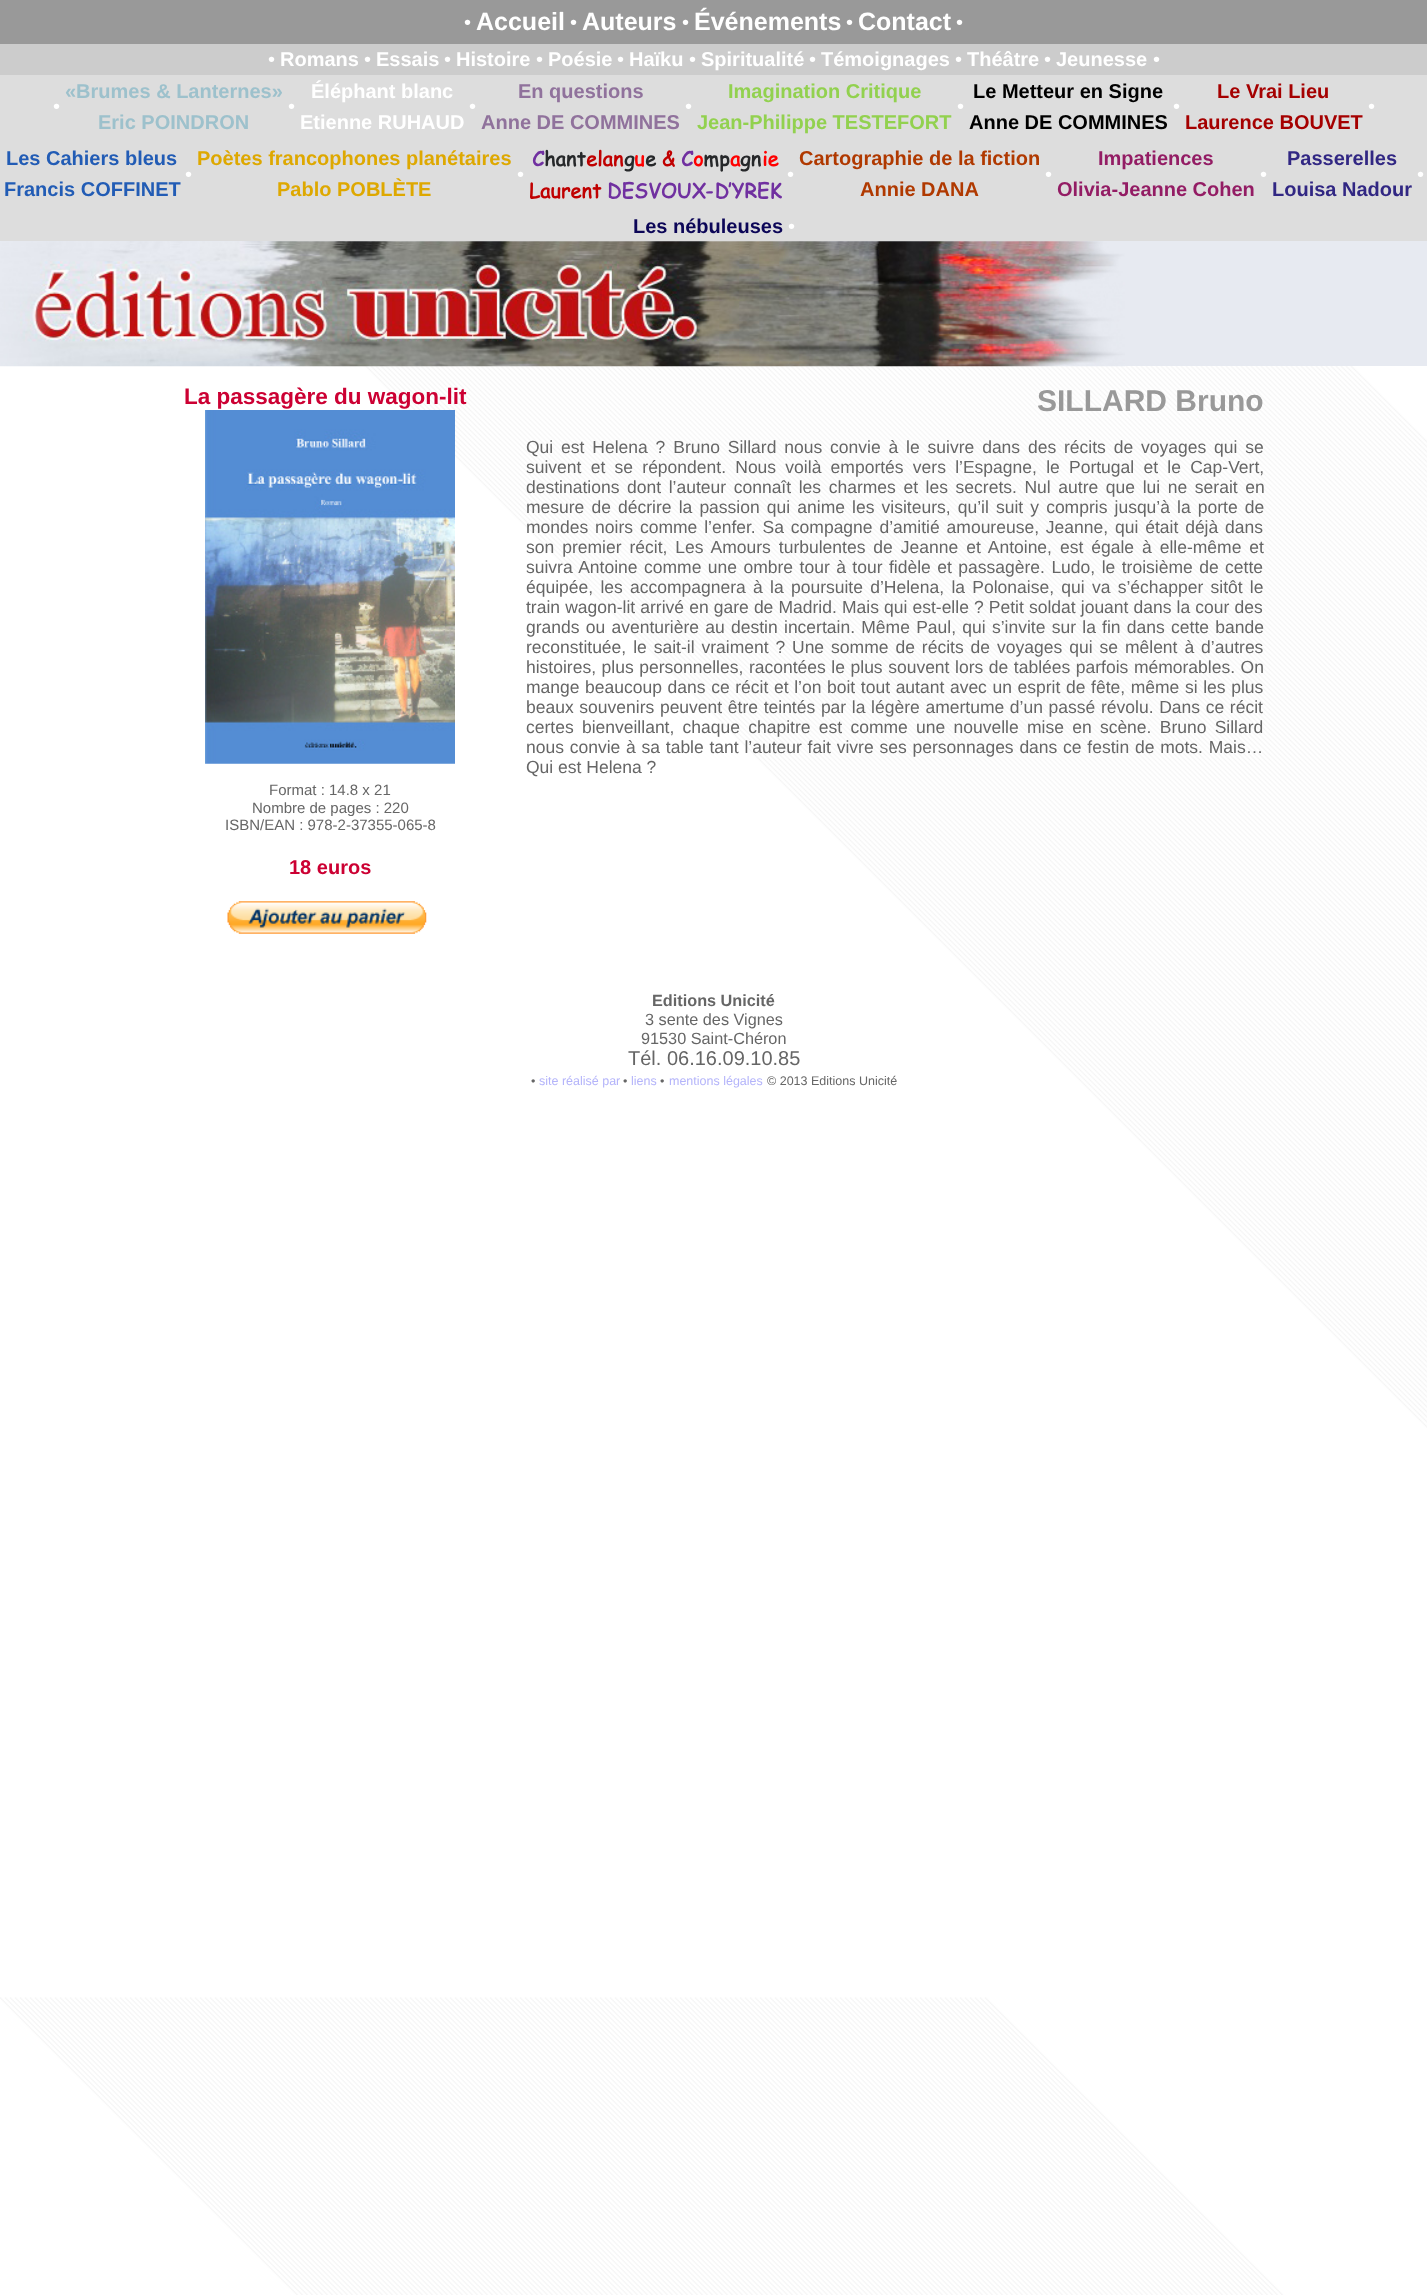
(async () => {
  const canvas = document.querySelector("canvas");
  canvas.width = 1427;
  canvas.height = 2295;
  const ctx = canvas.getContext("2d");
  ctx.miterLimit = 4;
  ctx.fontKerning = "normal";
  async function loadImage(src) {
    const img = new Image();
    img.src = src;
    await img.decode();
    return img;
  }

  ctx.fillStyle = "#ffffff";
  ctx.fillRect(0, 0, 1427, 2295);
  ctx.drawImage(await loadImage("img/1.png"), 0, 366, 1427, 1929);
  for (const [x, y, w, h, color] of [
    [0, 0, 1427, 44, "#999999"],
    [0, 44, 1427, 31, "#cccccc"],
    [0, 75, 1427, 166, "#dddddd"],
    [0, 241, 1427, 125, "#e7eaf1"],
  ]) {
    ctx.fillStyle = color;
    ctx.fillRect(x, y, w, h);
  }
  ctx.drawImage(await loadImage("img/2.png"), 0, 241, 1125, 126);
  ctx.drawImage(await loadImage("img/3.png"), 205, 410, 250, 354);
  ctx.drawImage(await loadImage("img/4.png"), 227, 901, 200, 33);
  ctx.font = "20px Liberation Sans";
  ctx.fillStyle = "#ffffff";
  ctx.fillText("•", 464, 29);
  ctx.font = "bold 25px Liberation Sans";
  ctx.fillText("Accueil", 476, 30);
  ctx.font = "20px Liberation Sans";
  ctx.fillText("•", 570, 29);
  ctx.font = "bold 25px Liberation Sans";
  ctx.fillText("Auteurs", 582, 30);
  ctx.font = "20px Liberation Sans";
  ctx.fillText("•", 682, 29);
  ctx.font = "bold 25px Liberation Sans";
  ctx.fillText("Événements", 694, 30);
  ctx.font = "20px Liberation Sans";
  ctx.fillText("•", 846, 29);
  ctx.font = "bold 25px Liberation Sans";
  ctx.fillText("Contact", 858, 30);
  ctx.font = "20px Liberation Sans";
  ctx.fillText("•", 956, 29);
  ctx.fillText("•", 268, 66);
  ctx.font = "bold 20px Liberation Sans";
  ctx.fillText("Romans", 280, 66);
  ctx.font = "20px Liberation Sans";
  ctx.fillText("•", 364, 66);
  ctx.font = "bold 20px Liberation Sans";
  ctx.fillText("Essais", 376, 66);
  ctx.font = "20px Liberation Sans";
  ctx.fillText("•", 444, 66);
  ctx.font = "bold 20px Liberation Sans";
  ctx.fillText("Histoire", 456, 66);
  ctx.font = "20px Liberation Sans";
  ctx.fillText("•", 536, 66);
  ctx.font = "bold 20px Liberation Sans";
  ctx.fillText("Poésie", 548, 66);
  ctx.font = "20px Liberation Sans";
  ctx.fillText("•", 617, 66);
  ctx.font = "bold 20px Liberation Sans";
  ctx.fillText("Haïku", 629, 66);
  ctx.font = "20px Liberation Sans";
  ctx.fillText("•", 689, 66);
  ctx.font = "bold 20px Liberation Sans";
  ctx.fillText("Spiritualité", 701, 66);
  ctx.font = "20px Liberation Sans";
  ctx.fillText("•", 809, 66);
  ctx.font = "bold 20px Liberation Sans";
  ctx.fillText("Témoignages", 821, 66);
  ctx.font = "20px Liberation Sans";
  ctx.fillText("•", 955, 66);
  ctx.font = "bold 20px Liberation Sans";
  ctx.fillText("Théâtre", 967, 66);
  ctx.font = "20px Liberation Sans";
  ctx.fillText("•", 1044, 66);
  ctx.font = "bold 20px Liberation Sans";
  ctx.fillText("Jeunesse", 1056, 66);
  ctx.font = "20px Liberation Sans";
  ctx.fillText("•", 1153, 66);
  ctx.fillText("•", 53, 113);
  ctx.font = "bold 20px Liberation Sans";
  ctx.fillStyle = "#9dc1cc";
  ctx.fillText("«Brumes & Lanternes»", 65, 98);
  ctx.fillText("Eric POINDRON", 98, 129);
  ctx.font = "20px Liberation Sans";
  ctx.fillStyle = "#ffffff";
  ctx.fillText("•", 288, 113);
  ctx.font = "bold 20px Liberation Sans";
  ctx.fillText("Éléphant blanc", 311, 98);
  ctx.fillText("Etienne RUHAUD", 300, 129);
  ctx.font = "20px Liberation Sans";
  ctx.fillText("•", 469, 113);
  ctx.font = "bold 20px Liberation Sans";
  ctx.fillStyle = "#90729c";
  ctx.fillText("En questions", 518, 98);
  ctx.fillText("Anne DE COMMINES", 481, 129);
  ctx.font = "20px Liberation Sans";
  ctx.fillStyle = "#ffffff";
  ctx.fillText("•", 685, 113);
  ctx.font = "bold 20px Liberation Sans";
  ctx.fillStyle = "#92d14f";
  ctx.fillText("Imagination Critique", 728, 98);
  ctx.fillText("Jean-Philippe TESTEFORT", 697, 129);
  ctx.font = "20px Liberation Sans";
  ctx.fillStyle = "#ffffff";
  ctx.fillText("•", 957, 113);
  ctx.font = "bold 20px Liberation Sans";
  ctx.fillStyle = "#000000";
  ctx.fillText("Le Metteur en Signe", 973, 98);
  ctx.fillText("Anne DE COMMINES", 969, 129);
  ctx.font = "20px Liberation Sans";
  ctx.fillStyle = "#ffffff";
  ctx.fillText("•", 1173, 113);
  ctx.font = "bold 20px Liberation Sans";
  ctx.fillStyle = "#a50000";
  ctx.fillText("Le Vrai Lieu", 1217, 98);
  ctx.fillText("Laurence BOUVET", 1185, 129);
  ctx.font = "20px Liberation Sans";
  ctx.fillStyle = "#ffffff";
  ctx.fillText("•", 1368, 113);
  ctx.font = "bold 20px Liberation Sans";
  ctx.fillStyle = "#225cb5";
  ctx.fillText("Les Cahiers bleus", 6, 165);
  ctx.fillText("Francis COFFINET", 4, 196);
  ctx.font = "20px Liberation Sans";
  ctx.fillStyle = "#ffffff";
  ctx.fillText("•", 185, 181);
  ctx.font = "bold 20px Liberation Sans";
  ctx.fillStyle = "#dea800";
  ctx.fillText("Poètes francophones planétaires", 197, 165);
  ctx.fillText("Pablo POBLÈTE", 277, 196);
  ctx.font = "20px Liberation Sans";
  ctx.fillStyle = "#ffffff";
  ctx.fillText("•", 517, 181);
  ctx.font = "bold 20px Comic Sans";
  ctx.fillStyle = "#7030a0";
  ctx.fillText("C", 532, 166);
  ctx.fillStyle = "#26282a";
  ctx.fillText("hant", 544, 166);
  ctx.fillStyle = "#c00000";
  ctx.fillText("elan", 586, 166);
  ctx.fillStyle = "#26282a";
  ctx.fillText("g", 624, 166);
  ctx.fillStyle = "#ff0000";
  ctx.fillText("u", 634, 166);
  ctx.fillStyle = "#26282a";
  ctx.fillText("e", 645, 166);
  ctx.fillStyle = "#c00000";
  ctx.fillText("&", 662, 166);
  ctx.fillStyle = "#7030a0";
  ctx.fillText("C", 681, 166);
  ctx.fillStyle = "#ff0000";
  ctx.fillText("o", 693, 166);
  ctx.fillStyle = "#26282a";
  ctx.fillText("mp", 703, 166);
  ctx.fillStyle = "#ff0000";
  ctx.fillText("a", 730, 166);
  ctx.fillStyle = "#26282a";
  ctx.fillText("gn", 740, 166);
  ctx.fillStyle = "#ff0000";
  ctx.fillText("ie", 762, 166);
  ctx.fillStyle = "#c00000";
  ctx.fillText("Laurent", 529, 198);
  ctx.fillStyle = "#7030a0";
  ctx.fillText("DESVOUX-D’YREK", 607, 198);
  ctx.font = "20px Liberation Sans";
  ctx.fillStyle = "#ffffff";
  ctx.fillText("•", 787, 181);
  ctx.font = "bold 20px Liberation Sans";
  ctx.fillStyle = "#b03900";
  ctx.fillText("Cartographie de la fiction", 799, 165);
  ctx.fillText("Annie DANA", 860, 196);
  ctx.font = "20px Liberation Sans";
  ctx.fillStyle = "#ffffff";
  ctx.fillText("•", 1045, 181);
  ctx.font = "bold 20px Liberation Sans";
  ctx.fillStyle = "#931c64";
  ctx.fillText("Impatiences", 1098, 165);
  ctx.fillText("Olivia-Jeanne Cohen", 1057, 196);
  ctx.font = "20px Liberation Sans";
  ctx.fillStyle = "#ffffff";
  ctx.fillText("•", 1260, 181);
  ctx.font = "bold 20px Liberation Sans";
  ctx.fillStyle = "#312783";
  ctx.fillText("Passerelles", 1287, 165);
  ctx.fillText("Louisa Nadour", 1272, 196);
  ctx.font = "20px Liberation Sans";
  ctx.fillStyle = "#ffffff";
  ctx.fillText("•", 1417, 181);
  ctx.font = "bold 20px Liberation Sans";
  ctx.fillStyle = "#0c0657";
  ctx.fillText("Les nébuleuses", 633, 233);
  ctx.font = "20px Liberation Sans";
  ctx.fillStyle = "#ffffff";
  ctx.fillText("•", 788, 233);
  ctx.font = "bold 22.5px Liberation Sans";
  ctx.fillStyle = "#cc0033";
  ctx.fillText("La passagère du wagon-lit", 184, 404);
  ctx.font = "15px Liberation Sans";
  ctx.fillStyle = "#666666";
  for (const [text, x, y] of [
    ["Format : 14.8 x 21", 269, 795],
    ["Nombre de pages : 220", 252, 813],
    ["ISBN/EAN : 978-2-37355-065-8", 225, 830],
  ]) {
    ctx.fillText(text, x, y);
  }
  ctx.font = "bold 20px Liberation Sans";
  ctx.fillStyle = "#cc0033";
  ctx.fillText("18 euros", 289, 874);
  ctx.font = "bold 30px Liberation Sans";
  ctx.fillStyle = "#999999";
  ctx.fillText("SILLARD Bruno", 1037, 411);
  ctx.wordSpacing = "3px";
  ctx.font = "17.5px Liberation Sans";
  ctx.fillStyle = "#666666";
  ctx.fillText("Qui est Helena ? Bruno Sillard nous convie à le suivre dans des récits de voyages qui se", 526, 453);
  ctx.wordSpacing = "4.4px";
  ctx.fillText("suivent et se répondent. Nous voilà emportés vers l’Espagne, le Portugal et le Cap-Vert,", 526, 473);
  ctx.wordSpacing = "2.75px";
  ctx.fillText("destinations dont l’auteur connaît les charmes et les secrets. Nul autre que lui ne serait en", 526, 493);
  ctx.wordSpacing = "2.25px";
  ctx.fillText("mesure de décrire la passion qui anime les visiteurs, qu’il suit y compris jusqu’à la porte de", 526, 513);
  ctx.wordSpacing = "2px";
  ctx.fillText("mondes noirs comme l’enfer. Sa compagne d’amitié amoureuse, Jeanne, qui était déjà dans", 526, 533);
  ctx.wordSpacing = "3.1px";
  ctx.fillText("son premier récit, Les Amours turbulentes de Jeanne et Antoine, est égale à elle-même et", 526, 553);
  ctx.wordSpacing = "1.6px";
  ctx.fillText("suivra Antoine comme une ombre tour à tour fidèle et passagère. Ludo, le troisième de cette", 526, 573);
  ctx.wordSpacing = "2.4px";
  ctx.fillText("équipée, les accompagnera à la poursuite d’Helena, la Polonaise, qui va s’échapper sitôt le", 526, 593);
  ctx.wordSpacing = "0.25px";
  ctx.fillText("train wagon-lit arrivé en gare de Madrid. Mais qui est-elle ? Petit soldat jouant dans la cour des", 526, 613);
  ctx.wordSpacing = "1.4px";
  ctx.fillText("grands ou aventurière au destin incertain. Même Paul, qui s’invite sur la fin dans cette bande", 526, 633);
  ctx.wordSpacing = "2.1px";
  ctx.fillText("reconstituée, le sait-il vraiment ?", 526, 653);
  ctx.fillText("Une somme de récits de voyages qui se mêlent à d’autres", 792, 653);
  ctx.wordSpacing = "0.7px";
  ctx.fillText("histoires, plus personnelles, racontées le plus souvent lors de tablées parfois mémorables. On", 526, 673);
  ctx.wordSpacing = "0.75px";
  ctx.fillText("mange beaucoup dans ce récit et l’on boit tout autant avec un esprit de fête, même si les plus", 526, 693);
  ctx.wordSpacing = "0.8px";
  ctx.fillText("beaux souvenirs peuvent être teintés par la légère amertume d’un passé révolu. Dans ce récit", 526, 713);
  ctx.wordSpacing = "3.4px";
  ctx.fillText("certes bienveillant, chaque chapitre est comme une nouvelle mise en scène. Bruno Sillard", 526, 733);
  ctx.wordSpacing = "0.9px";
  ctx.fillText("nous convie à sa table tant l’auteur fait vivre ses personnages dans ce festin de mots. Mais…", 526, 753);
  ctx.wordSpacing = "0px";
  ctx.fillText("Qui est Helena ?", 526, 773);
  ctx.font = "bold 16.25px Liberation Sans";
  ctx.fillText("Editions Unicité", 652, 1006);
  ctx.font = "16.25px Liberation Sans";
  ctx.fillText("3 sente des Vignes", 645, 1025);
  ctx.fillText("91530 Saint-Chéron", 641, 1044);
  ctx.font = "20px Liberation Sans";
  ctx.fillText("Tél. 06.16.09.10.85", 628, 1065);
  ctx.font = "12.5px Liberation Sans";
  ctx.fillText("•", 531, 1085);
  ctx.fillStyle = "#b4b4fa";
  ctx.fillText("site réalisé par", 539, 1085);
  ctx.fillStyle = "#666666";
  ctx.fillText("•", 623, 1085);
  ctx.fillStyle = "#b4b4fa";
  ctx.fillText("liens", 631, 1085);
  ctx.fillStyle = "#666666";
  ctx.fillText("•", 660, 1085);
  ctx.fillStyle = "#b4b4fa";
  ctx.fillText("mentions légales", 669, 1085);
  ctx.fillStyle = "#666666";
  ctx.fillText("© 2013 Editions Unicité", 767, 1085);
})();
